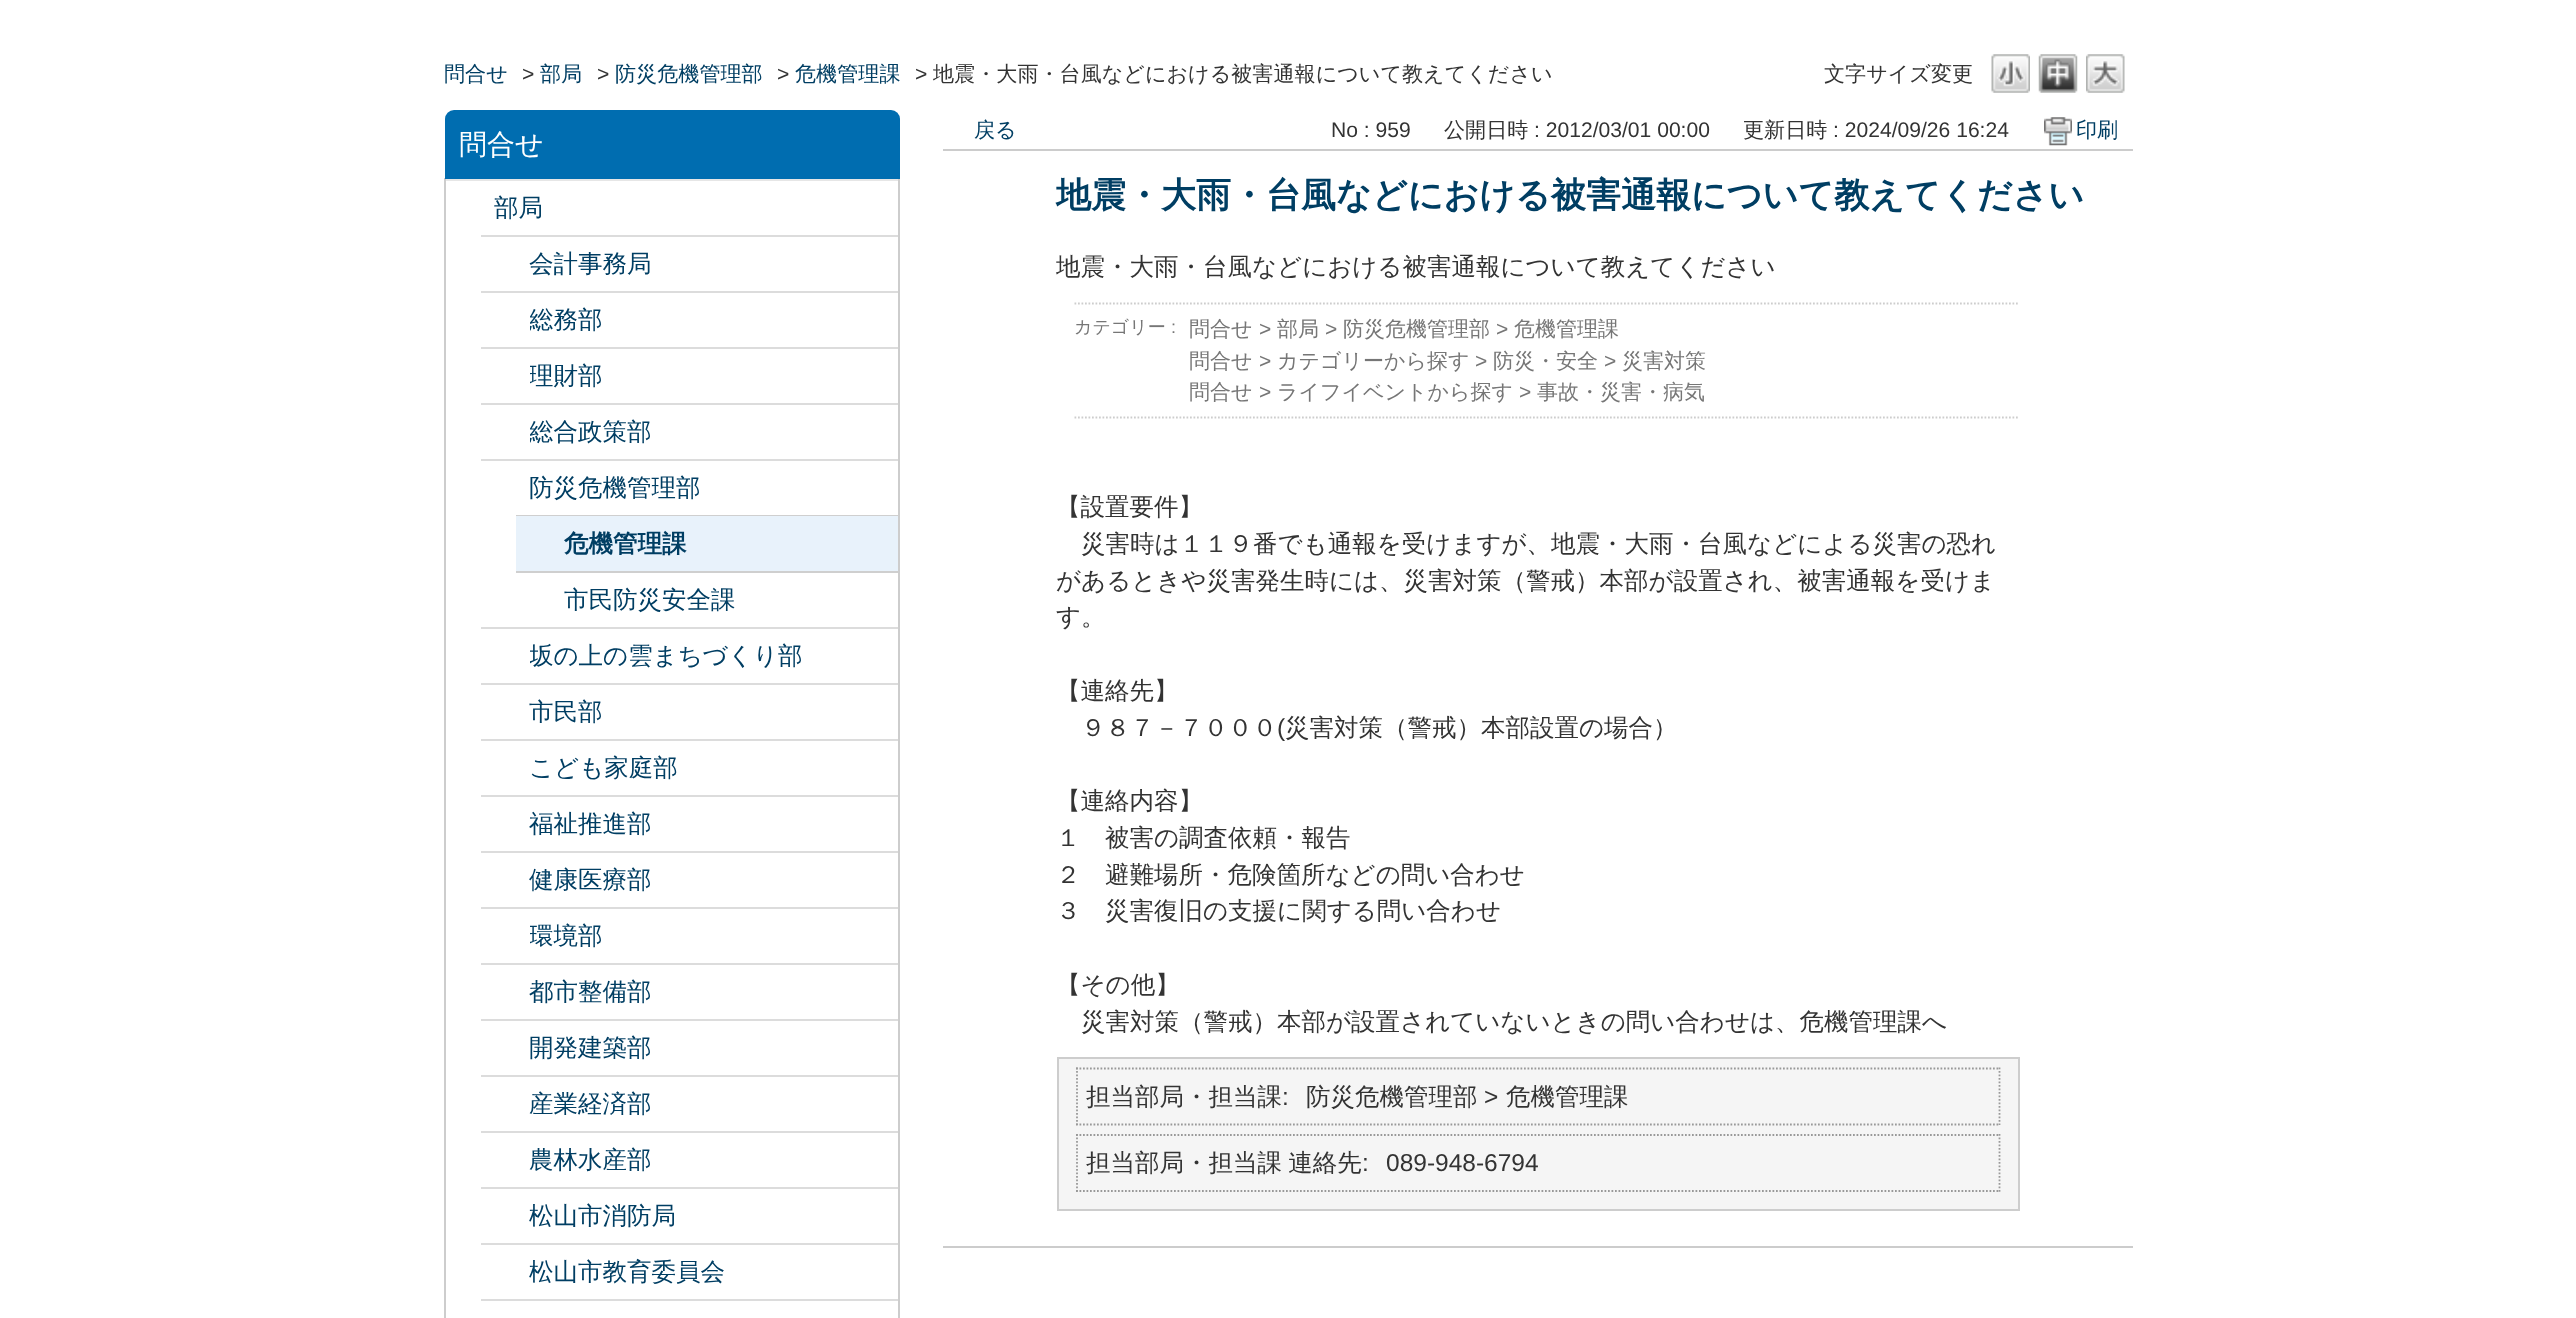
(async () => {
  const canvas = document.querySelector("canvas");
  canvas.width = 2576;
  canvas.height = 1318;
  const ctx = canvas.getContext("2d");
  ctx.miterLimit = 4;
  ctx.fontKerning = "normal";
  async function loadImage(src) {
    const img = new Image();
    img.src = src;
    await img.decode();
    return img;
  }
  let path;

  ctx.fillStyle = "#ffffff";
  ctx.fillRect(0, 0, 2576, 1318);
  ctx.drawImage(await loadImage("img/1.png"), 1991, 54, 39, 39);
  ctx.drawImage(await loadImage("img/2.png"), 2038, 54, 40, 39);
  ctx.drawImage(await loadImage("img/3.png"), 2086, 54, 39, 39);
  ctx.fillStyle = "#cdcdcd";
  path = new Path2D("M444 178H900V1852C900 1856 896 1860 891 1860H453C448 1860 444 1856 444 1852ZM446 178H898V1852C898 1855 895 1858 891 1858H453C449 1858 446 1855 446 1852Z");
  ctx.fill(path, "evenodd");
  ctx.fillStyle = "#006db0";
  ctx.beginPath();
  ctx.roundRect(445, 110, 455, 69, [9, 9, 0, 0]);
  ctx.fill();
  for (const [x, y, w, h, color] of [
    [446, 179, 452, 2, "#e6e6e6"],
    [481, 235, 417, 2, "#dcdcdc"],
    [481, 291, 417, 2, "#dcdcdc"],
    [481, 347, 417, 2, "#dcdcdc"],
    [481, 403, 417, 2, "#dcdcdc"],
    [481, 459, 417, 2, "#dcdcdc"],
    [516, 515, 382, 1, "#cfcfcf"],
    [516, 516, 382, 55, "#e8f2fb"],
    [516, 571, 382, 2, "#cfcfcf"],
    [481, 627, 417, 2, "#dcdcdc"],
    [481, 683, 417, 2, "#dcdcdc"],
    [481, 739, 417, 2, "#dcdcdc"],
    [481, 795, 417, 2, "#dcdcdc"],
    [481, 851, 417, 2, "#dcdcdc"],
    [481, 907, 417, 2, "#dcdcdc"],
    [481, 963, 417, 2, "#dcdcdc"],
    [481, 1019, 417, 2, "#dcdcdc"],
    [481, 1075, 417, 2, "#dcdcdc"],
    [481, 1131, 417, 2, "#dcdcdc"],
    [481, 1187, 417, 2, "#dcdcdc"],
    [481, 1243, 417, 2, "#dcdcdc"],
    [481, 1299, 417, 2, "#dcdcdc"],
    [943, 149, 1190, 2, "#cccccc"],
  ]) {
    ctx.fillStyle = color;
    ctx.fillRect(x, y, w, h);
  }
  ctx.drawImage(await loadImage("img/4.png"), 2044, 117, 28, 29);
  path = new Path2D("M1074.5 303.5H2019.5");
  ctx.strokeStyle = "#cdcdcd";
  ctx.lineWidth = 1.8;
  ctx.setLineDash([1.75, 1.75]);
  ctx.stroke(path);
  path = new Path2D("M1074.5 417.5H2019.5");
  ctx.stroke(path);
  ctx.fillRect(943, 1246, 1190, 2);
  ctx.fillStyle = "#f5f5f5";
  ctx.beginPath();
  ctx.rect(1058, 1058, 961, 152);
  ctx.fill();
  ctx.lineWidth = 2;
  ctx.setLineDash([]);
  ctx.stroke();
  path = new Path2D("M1076 1068.5H2000");
  ctx.strokeStyle = "#999999";
  ctx.lineWidth = 1.8;
  ctx.setLineDash([1.75, 1.75]);
  ctx.stroke(path);
  path = new Path2D("M1999.5 1067.5V1125");
  ctx.stroke(path);
  path = new Path2D("M1076 1124.5H2000");
  ctx.stroke(path);
  path = new Path2D("M1077 1067.5V1125");
  ctx.stroke(path);
  path = new Path2D("M1076 1135H2000");
  ctx.stroke(path);
  path = new Path2D("M1999.5 1134V1192");
  ctx.stroke(path);
  path = new Path2D("M1076 1191H2000");
  ctx.stroke(path);
  path = new Path2D("M1077 1134V1192");
  ctx.stroke(path);
  ctx.font = "500 21.1px WenQuanYi Zen Hei";
  ctx.fillStyle = "#003e63";
  ctx.fillText("問合せ", 444, 81);
  ctx.font = "21.1px Liberation Sans";
  ctx.fillStyle = "#333333";
  ctx.fillText(">", 522, 81);
  ctx.font = "500 21.1px WenQuanYi Zen Hei";
  ctx.fillStyle = "#003e63";
  ctx.fillText("部局", 540, 81);
  ctx.font = "21.1px Liberation Sans";
  ctx.fillStyle = "#333333";
  ctx.fillText(">", 597, 81);
  ctx.font = "500 21.1px WenQuanYi Zen Hei";
  ctx.fillStyle = "#003e63";
  ctx.fillText("防災危機管理部", 615, 81);
  ctx.font = "21.1px Liberation Sans";
  ctx.fillStyle = "#333333";
  ctx.fillText(">", 777, 81);
  ctx.font = "500 21.1px WenQuanYi Zen Hei";
  ctx.fillStyle = "#003e63";
  ctx.fillText("危機管理課", 795, 81);
  ctx.font = "21.1px Liberation Sans";
  ctx.fillStyle = "#333333";
  ctx.fillText(">", 915, 81);
  ctx.font = "500 21.1px WenQuanYi Zen Hei";
  ctx.fillText("地震・大雨・台風などにおける被害通報について教えてください", 933, 81);
  ctx.fillText("文字サイズ変更", 1824, 81);
  ctx.font = "500 28px WenQuanYi Zen Hei";
  ctx.fillStyle = "#ffffff";
  ctx.fillText("問合せ", 459, 154);
  ctx.font = "500 24.5px WenQuanYi Zen Hei";
  ctx.fillStyle = "#003e63";
  ctx.fillText("部局", 494, 216);
  ctx.fillText("会計事務局", 529, 272);
  ctx.save();
  ctx.beginPath();
  ctx.rect(530, 301, 359, 37);
  ctx.clip();
  ctx.fillText("総務部", 529, 328);
  ctx.restore();
  ctx.save();
  ctx.beginPath();
  ctx.rect(530, 357, 359, 37);
  ctx.clip();
  ctx.fillText("理財部", 529, 384);
  ctx.restore();
  ctx.save();
  ctx.beginPath();
  ctx.rect(530, 413, 359, 37);
  ctx.clip();
  ctx.fillText("総合政策部", 529, 440);
  ctx.restore();
  ctx.fillText("防災危機管理部", 529, 496);
  ctx.font = "bold 24.5px WenQuanYi Zen Hei";
  ctx.fillText("危機管理課", 564, 552);
  ctx.font = "500 24.5px WenQuanYi Zen Hei";
  ctx.fillText("市民防災安全課", 564, 608);
  ctx.save();
  ctx.beginPath();
  ctx.rect(530, 637, 359, 37);
  ctx.clip();
  ctx.fillText("坂の上の雲まちづくり部", 529, 664);
  ctx.restore();
  for (const [text, x, y] of [
    ["市民部", 529, 720],
    ["こども家庭部", 529, 776],
    ["福祉推進部", 529, 832],
    ["健康医療部", 529, 888],
  ]) {
    ctx.fillText(text, x, y);
  }
  ctx.save();
  ctx.beginPath();
  ctx.rect(530, 917, 359, 37);
  ctx.clip();
  ctx.fillText("環境部", 529, 944);
  ctx.restore();
  for (const [text, x, y] of [
    ["都市整備部", 529, 1000],
    ["開発建築部", 529, 1056],
    ["産業経済部", 529, 1112],
    ["農林水産部", 529, 1168],
    ["松山市消防局", 529, 1224],
    ["松山市教育委員会", 529, 1280],
  ]) {
    ctx.fillText(text, x, y);
  }
  ctx.font = "500 21.1px WenQuanYi Zen Hei";
  ctx.fillText("戻る", 974, 137);
  ctx.font = "21.1px Liberation Sans";
  ctx.fillStyle = "#333333";
  ctx.fillText("No : 959", 1331, 137);
  ctx.font = "500 21.1px WenQuanYi Zen Hei";
  ctx.fillText("公開日時", 1444, 137);
  ctx.font = "21.1px Liberation Sans";
  ctx.fillText(": 2012/03/01 00:00", 1534, 137);
  ctx.font = "500 21.1px WenQuanYi Zen Hei";
  ctx.fillText("更新日時", 1743, 137);
  ctx.font = "21.1px Liberation Sans";
  ctx.fillText(": 2024/09/26 16:24", 1833, 137);
  ctx.font = "500 21.1px WenQuanYi Zen Hei";
  ctx.fillStyle = "#003e63";
  ctx.fillText("印刷", 2076, 137);
  ctx.font = "bold 35px WenQuanYi Zen Hei";
  ctx.fillText("地震・大雨・台風などにおける被害通報について教えてください", 1056, 207);
  ctx.font = "500 24.5px WenQuanYi Zen Hei";
  ctx.fillStyle = "#333333";
  ctx.fillText("地震・大雨・台風などにおける被害通報について教えてください", 1056, 275);
  ctx.font = "500 18px WenQuanYi Zen Hei";
  ctx.fillStyle = "#767676";
  ctx.fillText("カテゴリー", 1074, 333);
  ctx.font = "18px Liberation Sans";
  ctx.fillText(":", 1171, 333);
  ctx.font = "500 21px WenQuanYi Zen Hei";
  ctx.fillText("問合せ", 1189, 336);
  ctx.font = "21px Liberation Sans";
  ctx.fillText(">", 1259, 336);
  ctx.font = "500 21px WenQuanYi Zen Hei";
  ctx.fillText("部局", 1277, 336);
  ctx.font = "21px Liberation Sans";
  ctx.fillText(">", 1325, 336);
  ctx.font = "500 21px WenQuanYi Zen Hei";
  ctx.fillText("防災危機管理部", 1343, 336);
  ctx.font = "21px Liberation Sans";
  ctx.fillText(">", 1496, 336);
  ctx.font = "500 21px WenQuanYi Zen Hei";
  ctx.fillText("危機管理課", 1514, 336);
  ctx.fillText("問合せ", 1189, 368);
  ctx.font = "21px Liberation Sans";
  ctx.fillText(">", 1259, 368);
  ctx.font = "500 21px WenQuanYi Zen Hei";
  ctx.fillText("カテゴリーから探す", 1277, 368);
  ctx.font = "21px Liberation Sans";
  ctx.fillText(">", 1475, 368);
  ctx.font = "500 21px WenQuanYi Zen Hei";
  ctx.fillText("防災・安全", 1493, 368);
  ctx.font = "21px Liberation Sans";
  ctx.fillText(">", 1604, 368);
  ctx.font = "500 21px WenQuanYi Zen Hei";
  ctx.fillText("災害対策", 1622, 368);
  ctx.fillText("問合せ", 1189, 399);
  ctx.font = "21px Liberation Sans";
  ctx.fillText(">", 1259, 399);
  ctx.font = "500 21px WenQuanYi Zen Hei";
  ctx.fillText("ライフイベントから探す", 1277, 399);
  ctx.font = "21px Liberation Sans";
  ctx.fillText(">", 1519, 399);
  ctx.font = "500 21px WenQuanYi Zen Hei";
  ctx.fillText("事故・災害・病気", 1537, 399);
  ctx.font = "500 24.5px WenQuanYi Zen Hei";
  ctx.fillStyle = "#333333";
  for (const [text, x, y] of [
    ["【設置要件】", 1056, 515],
    ["災害時は１１９番でも通報を受けますが、地震・大雨・台風などによる災害の恐れ", 1081, 552],
    ["があるときや災害発生時には、災害対策（警戒）本部が設置され、被害通報を受けま", 1056, 589],
    ["す。", 1056, 625],
    ["【連絡先】", 1056, 699],
    ["９８７－７０００", 1081, 736],
  ]) {
    ctx.fillText(text, x, y);
  }
  ctx.font = "24.5px Liberation Sans";
  ctx.fillText("(", 1277, 736);
  ctx.font = "500 24.5px WenQuanYi Zen Hei";
  for (const [text, x, y] of [
    ["災害対策（警戒）本部設置の場合）", 1285, 736],
    ["【連絡内容】", 1056, 809],
    ["１　被害の調査依頼・報告", 1056, 846],
    ["２　避難場所・危険箇所などの問い合わせ", 1056, 883],
    ["３　災害復旧の支援に関する問い合わせ", 1056, 919],
    ["【その他】", 1056, 993],
    ["災害対策（警戒）本部が設置されていないときの問い合わせは、危機管理課へ", 1081, 1030],
    ["担当部局・担当課", 1086, 1105],
  ]) {
    ctx.fillText(text, x, y);
  }
  ctx.font = "24.5px Liberation Sans";
  ctx.fillText(":", 1282, 1105);
  ctx.font = "500 24.5px WenQuanYi Zen Hei";
  ctx.fillText("防災危機管理部", 1306, 1105);
  ctx.font = "24.5px Liberation Sans";
  ctx.fillText(">", 1484, 1105);
  ctx.font = "500 24.5px WenQuanYi Zen Hei";
  ctx.fillText("危機管理課", 1506, 1105);
  ctx.wordSpacing = "-1px";
  ctx.fillText("担当部局・担当課 連絡先", 1086, 1171);
  ctx.wordSpacing = "0px";
  ctx.font = "24.5px Liberation Sans";
  ctx.fillText(":", 1362, 1171);
  ctx.fillText("089-948-6794", 1386, 1171);
})();
